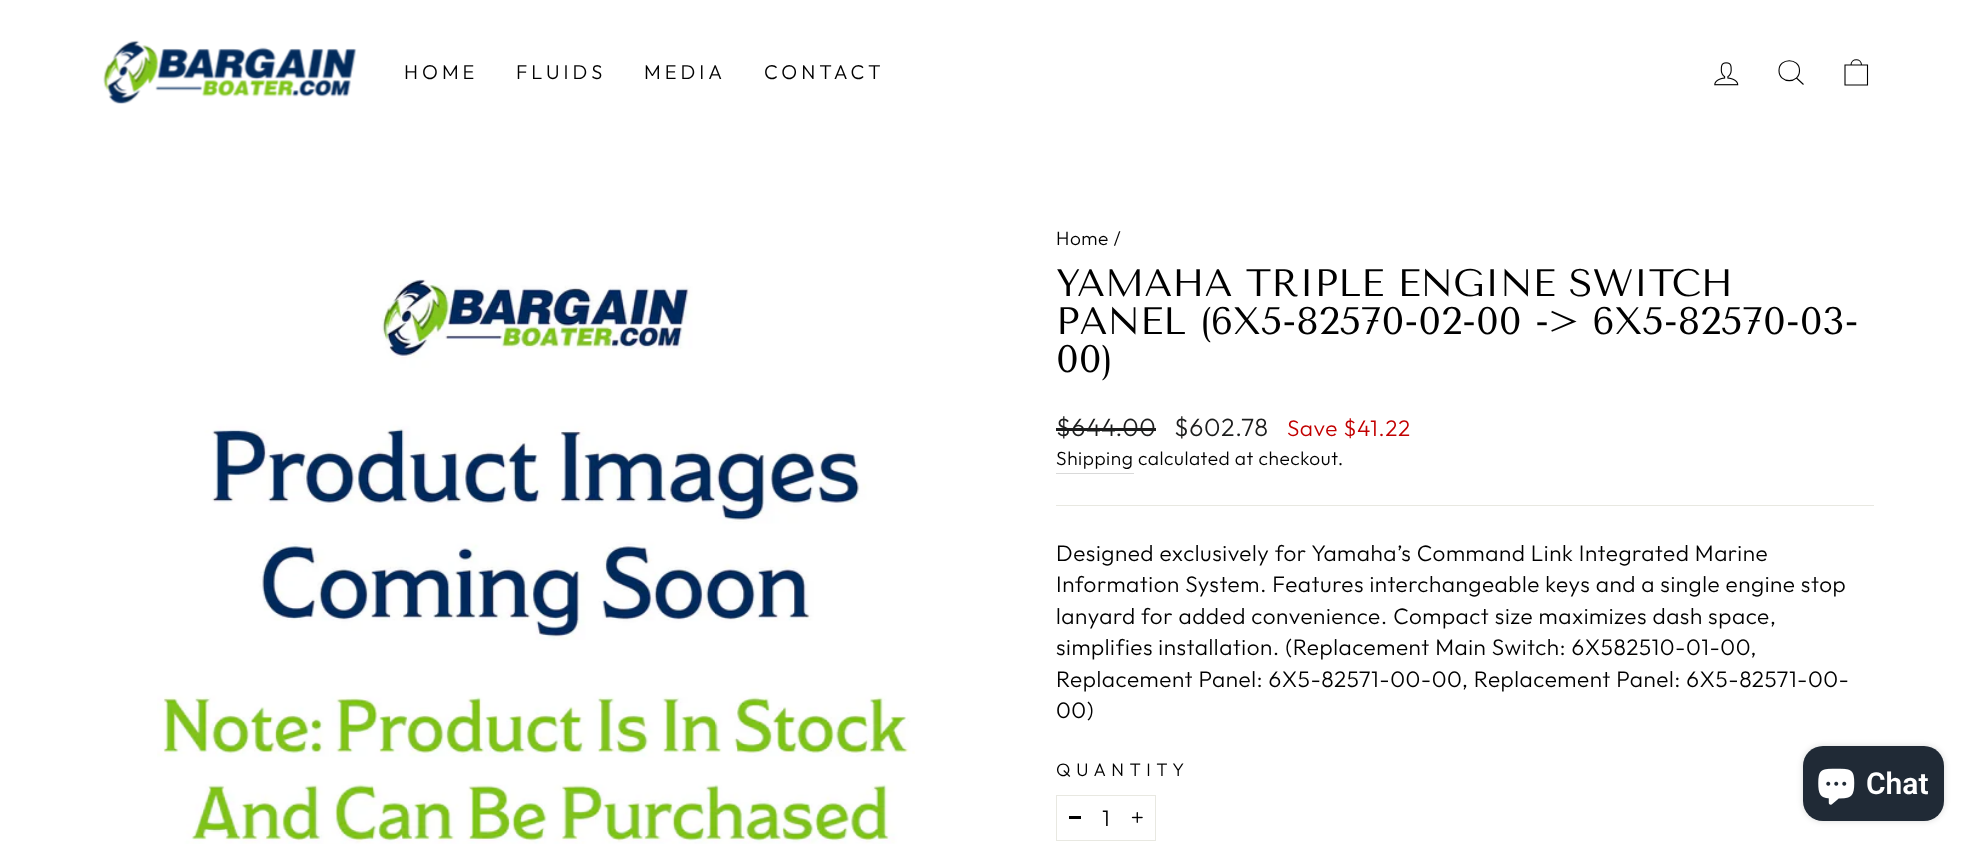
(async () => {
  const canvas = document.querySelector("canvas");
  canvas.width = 1971;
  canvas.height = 847;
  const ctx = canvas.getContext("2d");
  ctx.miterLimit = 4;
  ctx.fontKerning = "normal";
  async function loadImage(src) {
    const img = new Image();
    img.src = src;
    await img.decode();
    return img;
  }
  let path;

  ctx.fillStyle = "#ffffff";
  ctx.fillRect(0, 0, 1971, 847);
  ctx.fillStyle = "rgba(0, 0, 0, 0.2)";
  ctx.filter = "blur(0.5px)";
  ctx.beginPath();
  ctx.rect(0, 0, 1971, 144);
  ctx.fill();
  ctx.filter = "none";
  ctx.fillStyle = "#ffffff";
  ctx.fillRect(0, 0, 1971, 144);
  ctx.drawImage(await loadImage("img/1.png"), 103, 40, 254, 64);
  ctx.drawImage(await loadImage("img/2.png"), 1714, 62, 25, 24);
  path = new Path2D("M1799.5 70.5C1799.5 84 1779 84 1779 70.5C1779 57.5 1799.5 57.5 1799.5 70.5ZM1803.5 84.5L1796.5 78");
  ctx.strokeStyle = "#000000";
  ctx.lineWidth = 1.1;
  ctx.stroke(path);
  path = new Path2D("M1845 65H1867.5V85H1845ZM1851 65C1851 58 1861.5 58 1861.5 65");
  ctx.stroke(path);
  ctx.drawImage(await loadImage("img/3.png"), 157, 279, 758, 565);
  for (const [x, y, w, h, color] of [
    [1056, 428, 100, 3, "#1c1d1d"],
    [1056, 473, 78, 1, "#d9d9d9"],
    [1056, 505, 818, 1, "#e8e8e1"],
  ]) {
    ctx.fillStyle = color;
    ctx.fillRect(x, y, w, h);
  }
  ctx.strokeStyle = "#e8e8e1";
  ctx.lineWidth = 1;
  ctx.strokeRect(1056.5, 795.5, 99, 45);
  ctx.fillStyle = "#000000";
  ctx.fillRect(1069, 816, 12, 3);
  ctx.drawImage(await loadImage("img/4.png"), 1131, 812, 12, 11);
  ctx.fillStyle = "rgba(0, 0, 0, 0.15)";
  ctx.filter = "blur(3px)";
  ctx.beginPath();
  ctx.roundRect(1803, 746, 141, 75, 20);
  ctx.fill();
  ctx.filter = "none";
  ctx.fillStyle = "#202a36";
  ctx.beginPath();
  ctx.roundRect(1803, 746, 141, 75, 20);
  ctx.fill();
  ctx.drawImage(await loadImage("img/5.png"), 1818, 768, 37, 37);
  ctx.letterSpacing = "4px";
  ctx.font = "300 20px Outfit";
  ctx.fillStyle = "#000000";
  for (const [text, x, y] of [
    ["HOME", 404, 79],
    ["FLUIDS", 516, 79],
    ["MEDIA", 644, 79],
    ["CONTACT", 764, 79],
  ]) {
    ctx.fillText(text, x, y);
  }
  ctx.letterSpacing = "0.55px";
  ctx.font = "300 19.1px Outfit";
  ctx.fillText("Home /", 1056, 245);
  ctx.letterSpacing = "0px";
  ctx.font = "38.25px Tenor Sans";
  for (const [text, x, y] of [
    ["YAMAHA TRIPLE ENGINE SWITCH", 1056, 296],
    ["PANEL (6X5-82570-02-00 -> 6X5-82570-03-", 1056, 334],
    ["00)", 1056, 372],
  ]) {
    ctx.fillText(text, x, y);
  }
  ctx.letterSpacing = "0.55px";
  ctx.font = "300 25px Outfit";
  ctx.fillStyle = "#1c1d1d";
  ctx.fillText("$644.00", 1056, 436);
  ctx.fillText("$602.78", 1174, 436);
  ctx.font = "300 22.5px Outfit";
  ctx.fillStyle = "#c20000";
  ctx.fillText("Save $41.22", 1287, 436);
  ctx.font = "300 19.1px Outfit";
  ctx.fillStyle = "#000000";
  ctx.fillText("Shipping", 1056, 465);
  ctx.fillText("calculated at checkout.", 1138, 465);
  ctx.font = "300 22.5px Outfit";
  for (const [text, x, y] of [
    ["Designed exclusively for Yamaha’s Command Link Integrated Marine", 1056, 561],
    ["Information System. Features interchangeable keys and a single engine stop", 1056, 592],
    ["lanyard for added convenience. Compact size maximizes dash space,", 1056, 624],
    ["simplifies installation. (Replacement Main Switch: 6X582510-01-00,", 1056, 655],
    ["Replacement Panel: 6X5-82571-00-00, Replacement Panel: 6X5-82571-00-", 1056, 687],
    ["00)", 1056, 718],
  ]) {
    ctx.fillText(text, x, y);
  }
  ctx.letterSpacing = "5.5px";
  ctx.font = "300 18px Outfit";
  ctx.fillText("QUANTITY", 1056, 776);
  ctx.letterSpacing = "0.55px";
  ctx.font = "300 22.5px Outfit";
  ctx.fillText("1", 1102, 826);
  ctx.letterSpacing = "0px";
  ctx.font = "600 30px Roboto";
  ctx.fillStyle = "#ffffff";
  ctx.fillText("Chat", 1866, 794);
})();
